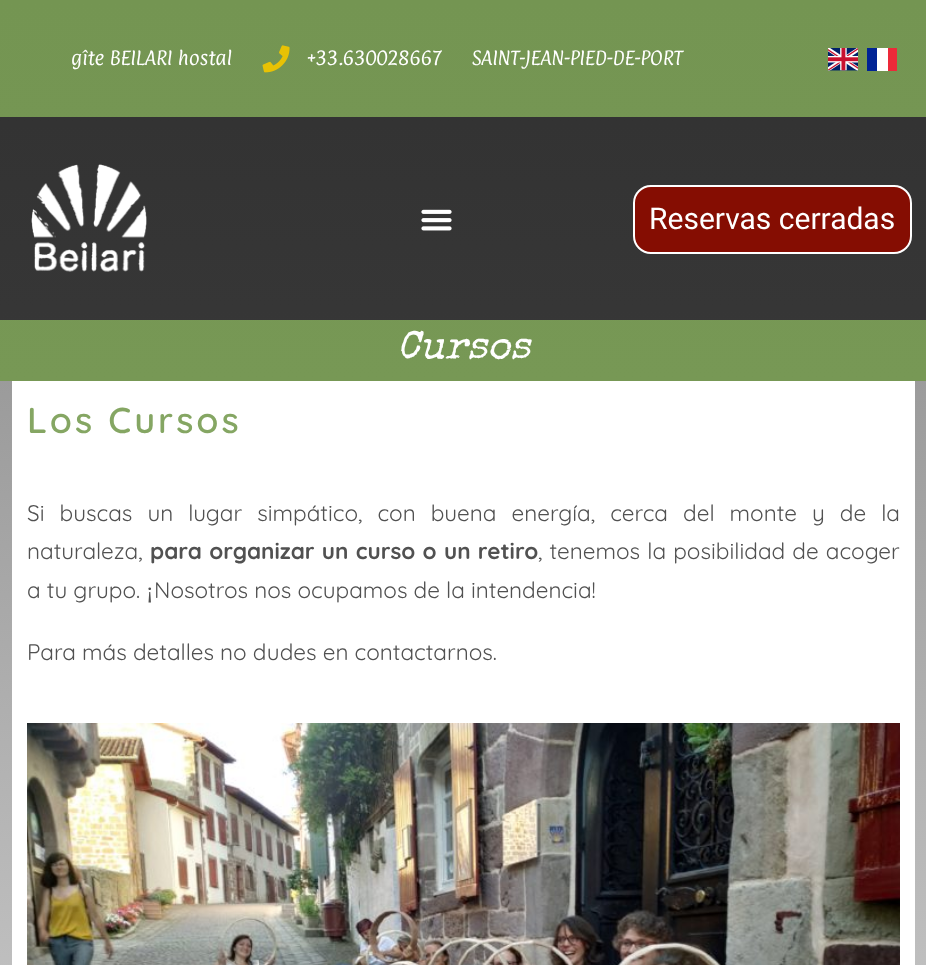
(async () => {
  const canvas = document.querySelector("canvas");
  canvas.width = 926;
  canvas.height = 965;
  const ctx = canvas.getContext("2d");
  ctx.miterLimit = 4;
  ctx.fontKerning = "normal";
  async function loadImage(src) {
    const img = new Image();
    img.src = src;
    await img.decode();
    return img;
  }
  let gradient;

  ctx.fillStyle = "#ffffff";
  ctx.fillRect(0, 0, 926, 965);
  gradient = ctx.createLinearGradient(463, 0, 464, 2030);
  gradient.addColorStop(0, "#848484");
  gradient.addColorStop(1, "#ffffff");
  ctx.fillStyle = gradient;
  ctx.fillRect(0, 381, 926, 584);
  gradient = ctx.createLinearGradient(463, 0, 464, 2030);
  gradient.addColorStop(0, "#313131");
  gradient.addColorStop(1, "#525252");
  ctx.fillStyle = gradient;
  ctx.fillRect(0, 117, 926, 203);
  gradient = ctx.createLinearGradient(463, 0, 464, 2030);
  gradient.addColorStop(0, "#749552");
  gradient.addColorStop(1, "#84a562");
  ctx.fillStyle = gradient;
  ctx.fillRect(0, 0, 926, 117);
  ctx.fillRect(0, 320, 926, 61);
  ctx.drawImage(await loadImage("img/1.png"), 262, 45, 28, 28);
  ctx.drawImage(await loadImage("img/2.png"), 828, 48, 30, 23);
  for (const [x, y, w, h, color] of [
    [867, 48, 10, 23, "#002395"],
    [877, 48, 11, 23, "#ffffff"],
    [888, 48, 9, 23, "#ed2939"],
  ]) {
    ctx.fillStyle = color;
    ctx.fillRect(x, y, w, h);
  }
  ctx.drawImage(await loadImage("img/3.png"), 31, 164, 116, 108);
  ctx.drawImage(await loadImage("img/4.png"), 421, 209, 31, 22);
  ctx.fillStyle = "#850d02";
  ctx.beginPath();
  ctx.roundRect(634, 186, 277, 67, 17);
  ctx.fill();
  ctx.strokeStyle = "#ffffff";
  ctx.lineWidth = 2;
  ctx.stroke();
  ctx.fillStyle = "#ffffff";
  ctx.fillRect(12, 381, 903, 584);
  ctx.drawImage(await loadImage("img/5.png"), 27, 723, 873, 242);
  ctx.font = "16.5px Paprika";
  for (const [text, x, y] of [
    ["gîte BEILARI hostal", 71, 65],
    ["+33.630028667", 307, 65],
    ["SAINT-JEAN-PIED-DE-PORT", 472, 65],
  ]) {
    ctx.fillText(text, x, y);
  }
  ctx.font = "30px Roboto";
  ctx.fillText("Reservas cerradas", 649, 229);
  ctx.font = "italic 39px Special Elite";
  ctx.fillText("Cursos", 397, 358);
  ctx.letterSpacing = "3px";
  ctx.font = "600 36px Quicksand";
  ctx.fillStyle = "#85a663";
  ctx.fillText("Los Cursos", 27, 433);
  ctx.letterSpacing = "0px";
  ctx.wordSpacing = "8.9px";
  ctx.font = "22.5px Quicksand";
  ctx.fillStyle = "#515151";
  ctx.fillText("Si buscas un lugar simpático, con buena energía, cerca del monte y de la", 27, 521);
  ctx.wordSpacing = "0px";
  ctx.fillText("naturaleza,", 27, 559);
  ctx.wordSpacing = "1px";
  ctx.font = "bold 22.5px Quicksand";
  ctx.fillText("para organizar un curso o un retiro", 150, 559);
  ctx.font = "22.5px Quicksand";
  ctx.fillText(", tenemos la posibilidad de acoger", 538, 559);
  ctx.wordSpacing = "0px";
  ctx.fillText("a tu grupo.", 27, 598);
  ctx.font = "22.5px Liberation Serif";
  ctx.fillText("¡", 146, 598);
  ctx.font = "22.5px Quicksand";
  ctx.fillText("Nosotros nos ocupamos de la intendencia!", 154, 598);
  ctx.fillText("Para más detalles no dudes en contactarnos.", 27, 660);
})();
